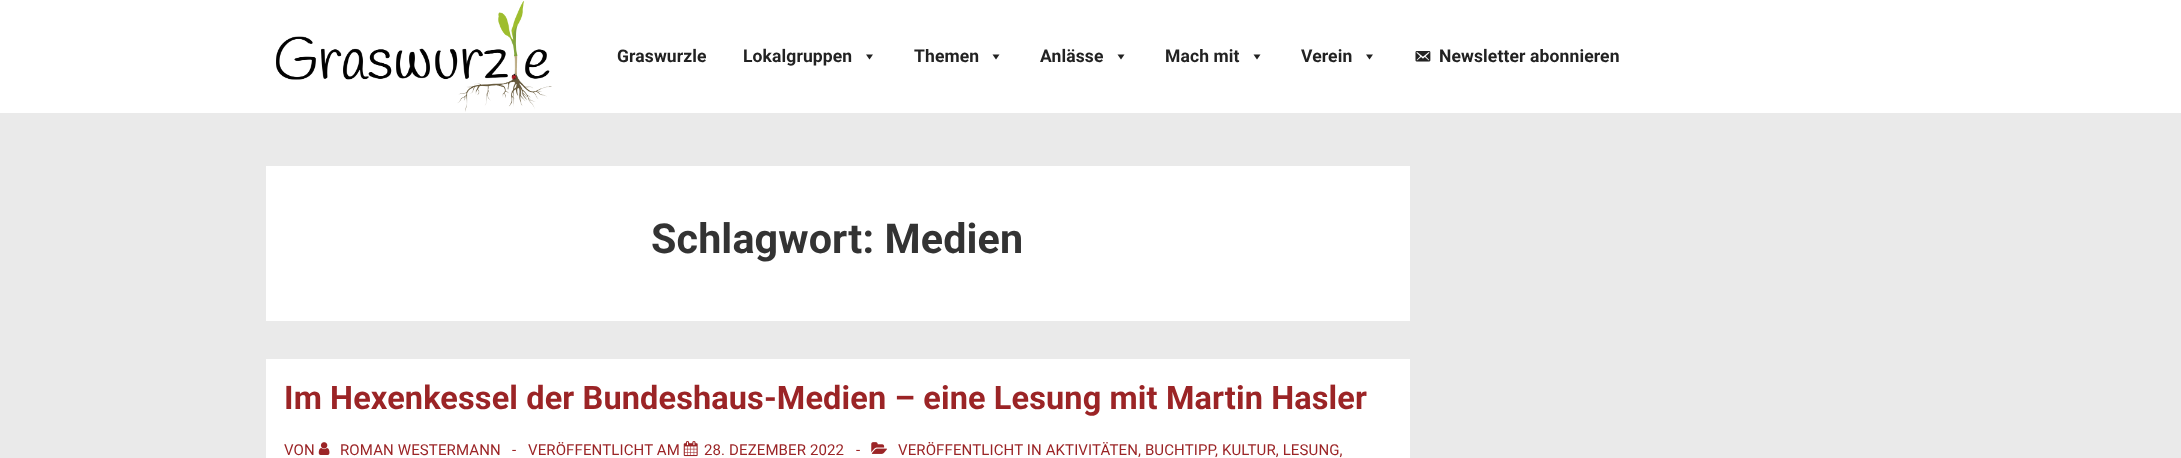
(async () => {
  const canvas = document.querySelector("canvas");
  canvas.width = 2181;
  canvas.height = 458;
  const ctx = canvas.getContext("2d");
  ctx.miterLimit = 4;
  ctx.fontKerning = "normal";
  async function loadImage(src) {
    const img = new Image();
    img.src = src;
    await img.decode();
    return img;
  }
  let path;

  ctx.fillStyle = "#eaeaea";
  ctx.fillRect(0, 0, 2181, 458);
  ctx.fillStyle = "#ffffff";
  ctx.fillRect(0, 0, 2181, 113);
  ctx.drawImage(await loadImage("img/1.png"), 276, 1, 276, 111);
  ctx.fillStyle = "#222222";
  path = new Path2D("M873 54.5L869.5 59.5L866 54.5Z");
  ctx.fill(path);
  path = new Path2D("M999.5 54.5L996 59.5L992.5 54.5Z");
  ctx.fill(path);
  path = new Path2D("M1124.5 54.5L1121 59.5L1117.5 54.5Z");
  ctx.fill(path);
  path = new Path2D("M1260.5 54.5L1257 59.5L1253.5 54.5Z");
  ctx.fill(path);
  path = new Path2D("M1373 54.5L1369.5 59.5L1366 54.5Z");
  ctx.fill(path);
  ctx.drawImage(await loadImage("img/2.png"), 1415, 51, 16, 11);
  ctx.fillStyle = "#ffffff";
  ctx.fillRect(266, 166, 1144, 155);
  ctx.fillRect(266, 359, 1144, 99);
  ctx.drawImage(await loadImage("img/3.png"), 318, 442, 12, 13);
  ctx.drawImage(await loadImage("img/4.png"), 683, 441, 15, 16);
  ctx.drawImage(await loadImage("img/5.png"), 871, 442, 16, 12);
  ctx.letterSpacing = "0.12px";
  ctx.font = "bold 17.5px Roboto";
  ctx.fillStyle = "#222222";
  for (const [text, x, y] of [
    ["Graswurzle", 617, 62],
    ["Lokalgruppen", 743, 62],
    ["Themen", 914, 62],
    ["Anlässe", 1040, 62],
    ["Mach mit", 1165, 62],
    ["Verein", 1301, 62],
    ["Newsletter abonnieren", 1439, 62],
  ]) {
    ctx.fillText(text, x, y);
  }
  ctx.font = "bold 41.25px Roboto";
  ctx.fillStyle = "#333333";
  ctx.fillText("Schlagwort: Medien", 651, 253);
  ctx.font = "bold 32.5px Roboto";
  ctx.fillStyle = "#9b2426";
  ctx.fillText("Im Hexenkessel der Bundeshaus-Medien – eine Lesung mit Martin Hasler", 284, 409);
  ctx.font = "15px Roboto";
  for (const [text, x, y] of [
    ["VON", 284, 455],
    ["ROMAN WESTERMANN", 340, 455],
    ["-", 512, 455],
    ["VERÖFFENTLICHT AM", 528, 455],
    ["28. DEZEMBER 2022", 704, 455],
    ["-", 856, 455],
    ["VERÖFFENTLICHT IN AKTIVITÄTEN, BUCHTIPP", 898, 455],
    [", KULTUR, LESUNG,", 1215, 455],
  ]) {
    ctx.fillText(text, x, y);
  }
})();
